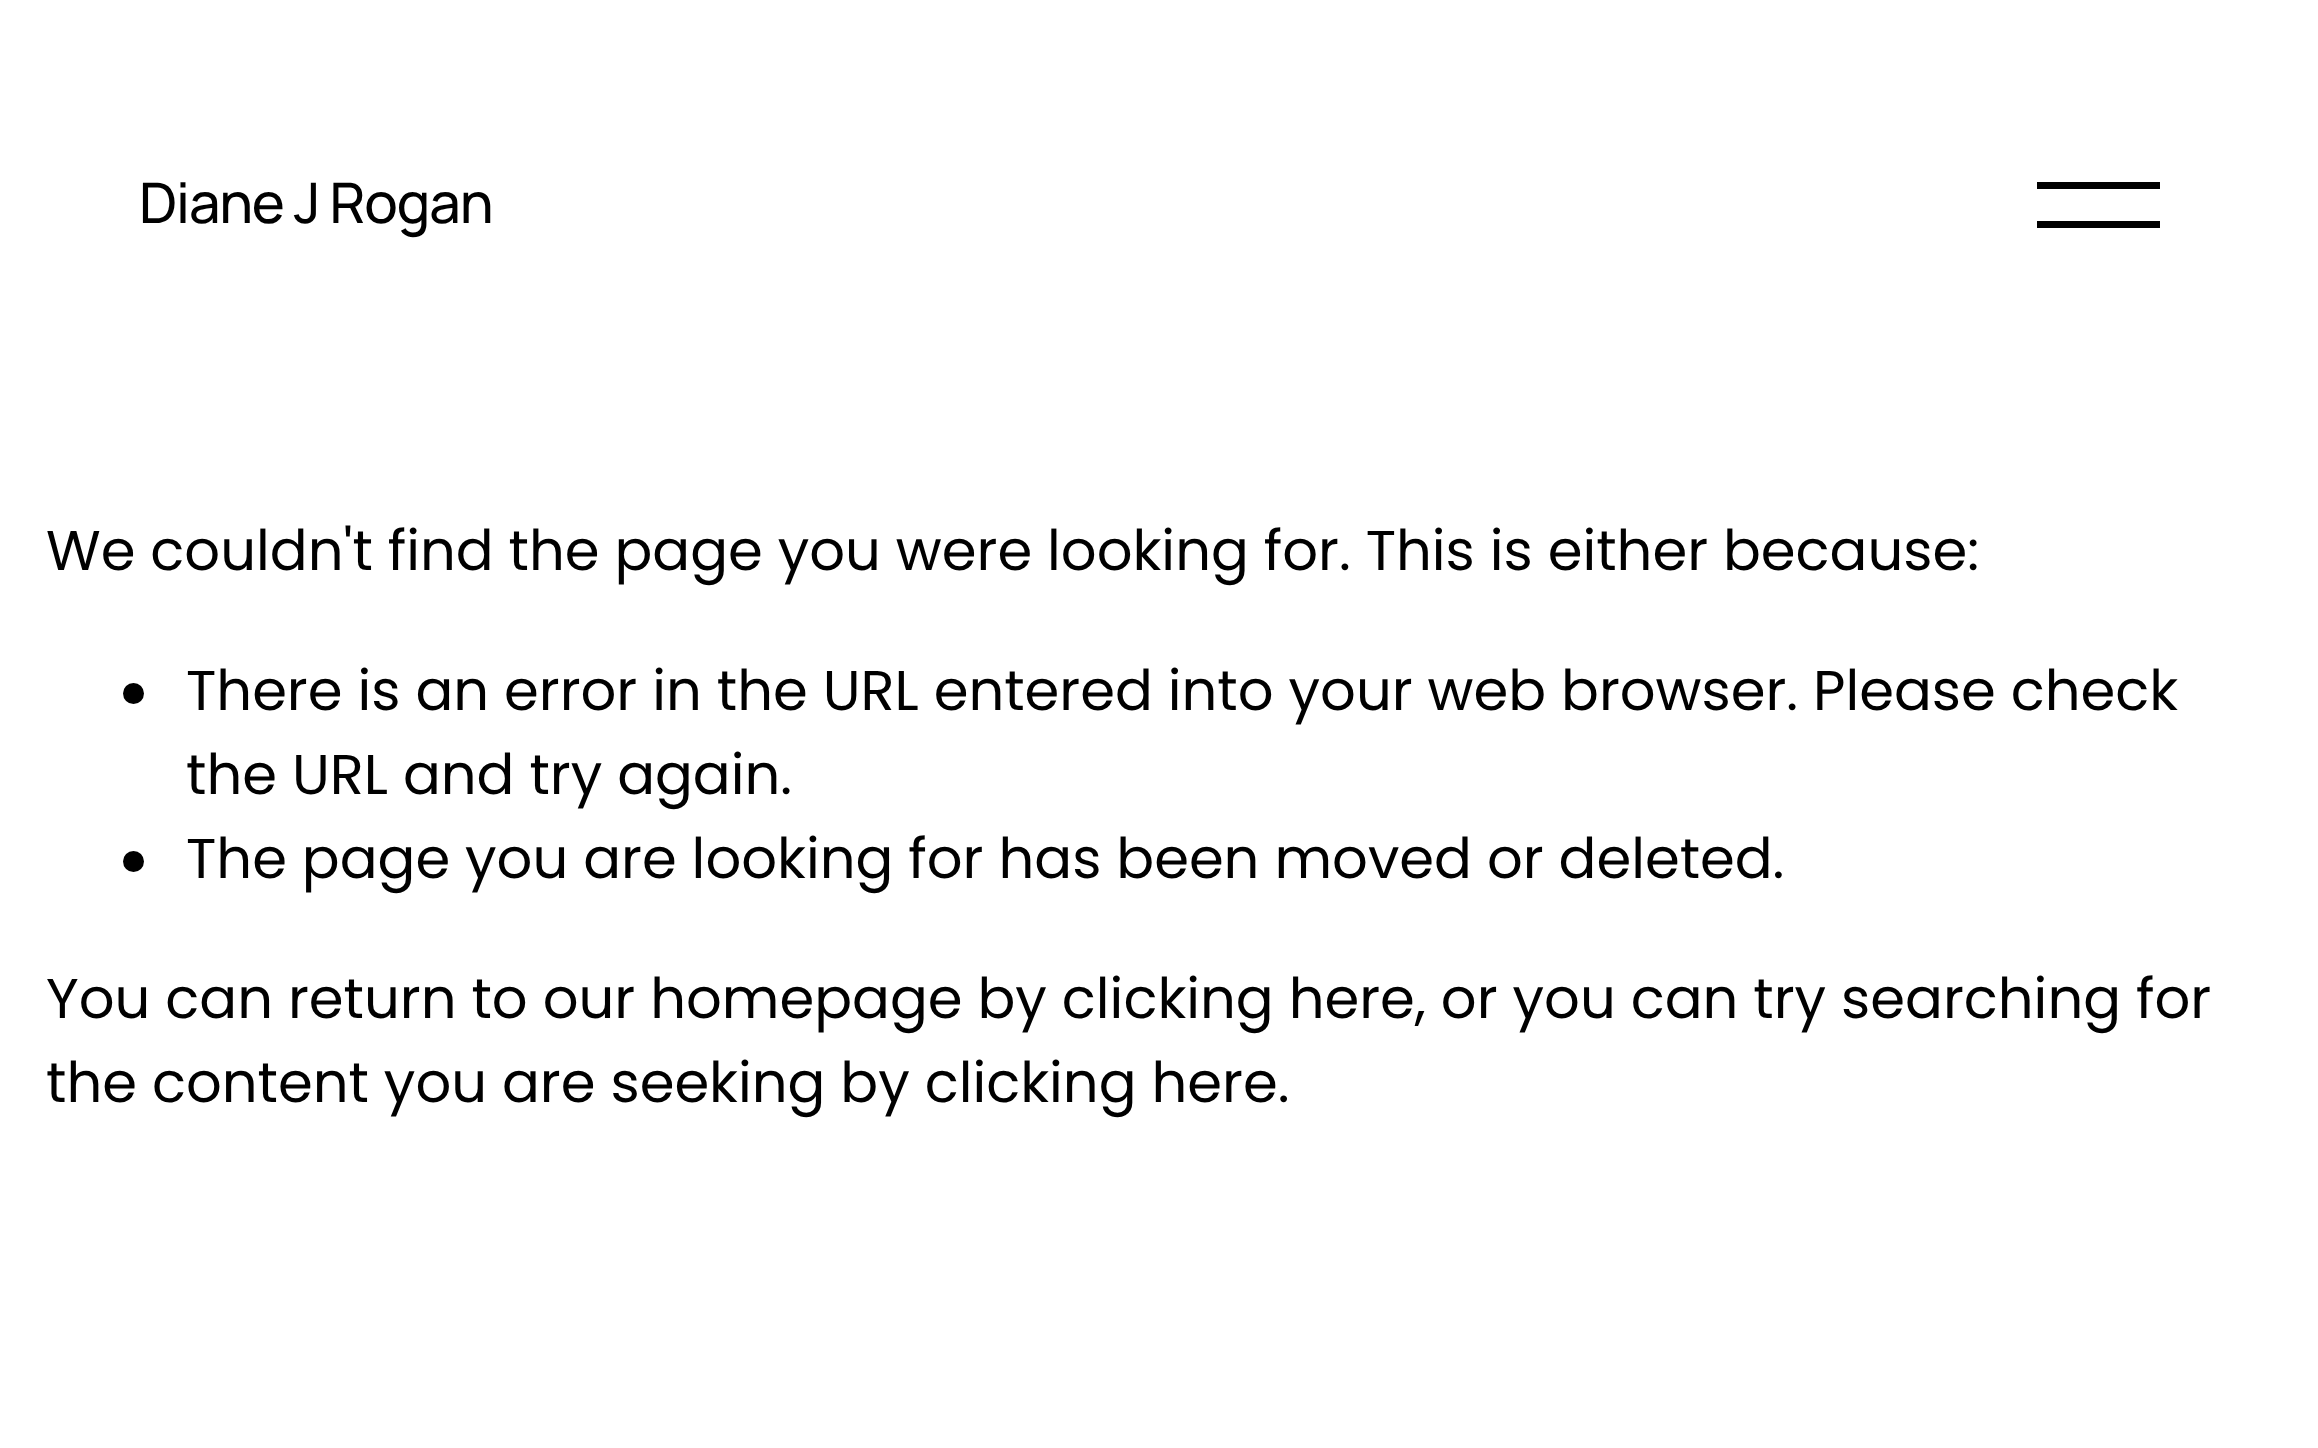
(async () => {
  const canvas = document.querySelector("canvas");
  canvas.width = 2318;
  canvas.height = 1448;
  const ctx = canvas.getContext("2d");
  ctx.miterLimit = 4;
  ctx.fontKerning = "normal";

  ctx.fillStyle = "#ffffff";
  ctx.fillRect(0, 0, 2318, 1448);
  ctx.fillStyle = "#000000";
  ctx.fillRect(2037, 182, 123, 7);
  ctx.fillRect(2037, 221, 123, 7);
  ctx.beginPath();
  ctx.arc(133.5, 693.5, 10.5, 0, Math.PI * 2);
  ctx.fill();
  ctx.beginPath();
  ctx.arc(133.5, 861.5, 10.5, 0, Math.PI * 2);
  ctx.fill();
  ctx.letterSpacing = "-1.1px";
  ctx.font = "500 56px Manrope";
  ctx.fillText("Diane J Rogan", 139, 223);
  ctx.letterSpacing = "0px";
  ctx.font = "56px Poppins";
  for (const [text, x, y] of [
    ["We couldn't find the page you were looking for. This is either because:", 46, 570],
    ["There is an error in the URL entered into your web browser. Please check", 186, 710],
    ["the URL and try again.", 186, 794],
    ["The page you are looking for has been moved or deleted.", 186, 878],
    ["You can return to our homepage by clicking here, or you can try searching for", 46, 1018],
    ["the content you are seeking by clicking here.", 46, 1102],
  ]) {
    ctx.fillText(text, x, y);
  }
})();
